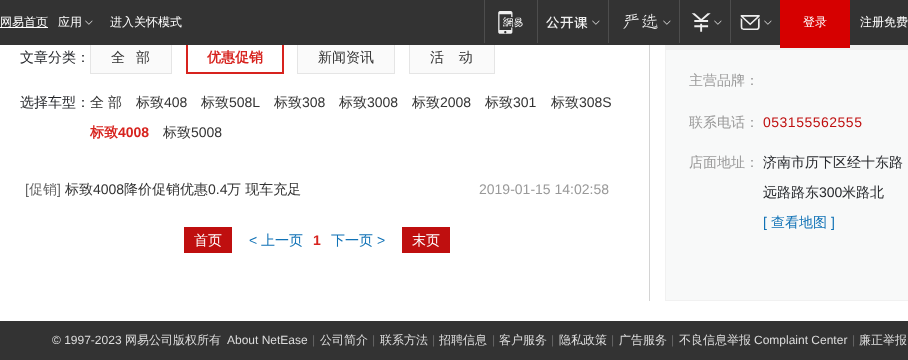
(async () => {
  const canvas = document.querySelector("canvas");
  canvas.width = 908;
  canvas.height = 360;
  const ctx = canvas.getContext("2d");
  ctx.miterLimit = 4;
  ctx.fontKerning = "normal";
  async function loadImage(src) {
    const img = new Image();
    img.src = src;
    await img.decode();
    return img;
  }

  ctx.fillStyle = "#ffffff";
  ctx.fillRect(0, 0, 908, 360);
  ctx.fillStyle = "#fafafa";
  ctx.fillRect(91, 45, 80, 28);
  ctx.strokeStyle = "#e5e5e5";
  ctx.strokeRect(90.5, 40.5, 81, 33);
  ctx.strokeStyle = "#d7231e";
  ctx.lineWidth = 2;
  ctx.strokeRect(187, 41, 96, 32);
  ctx.fillRect(298, 45, 96, 28);
  ctx.strokeStyle = "#e5e5e5";
  ctx.lineWidth = 1;
  ctx.strokeRect(297.5, 40.5, 97, 33);
  ctx.fillRect(410, 45, 84, 28);
  ctx.strokeRect(409.5, 40.5, 85, 33);
  ctx.fillStyle = "#f8f9f9";
  ctx.fillRect(666, 50, 242, 250);
  ctx.strokeStyle = "#f1f1f1";
  ctx.strokeRect(665.5, -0.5, 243, 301);
  ctx.fillStyle = "#333333";
  ctx.fillRect(0, 0, 908, 45);
  ctx.fillStyle = "#ffffff";
  ctx.fillRect(0, 27, 48, 1);
  ctx.drawImage(await loadImage("img/1.png"), 85, 20, 8, 5);
  ctx.fillStyle = "#4d4d4d";
  ctx.fillRect(484, 0, 1, 43);
  ctx.drawImage(await loadImage("img/2.png"), 498, 11, 25, 23);
  ctx.fillRect(537, 0, 1, 43);
  ctx.drawImage(await loadImage("img/3.png"), 546, 16, 42, 13);
  ctx.drawImage(await loadImage("img/1.png"), 592, 20, 8, 5);
  ctx.fillRect(608, 0, 1, 43);
  ctx.drawImage(await loadImage("img/4.png"), 623, 13, 35, 16);
  ctx.drawImage(await loadImage("img/1.png"), 663, 20, 8, 5);
  ctx.fillRect(679, 0, 1, 43);
  ctx.drawImage(await loadImage("img/5.png"), 691, 13, 20, 19);
  ctx.drawImage(await loadImage("img/1.png"), 714, 20, 8, 5);
  ctx.fillRect(730, 0, 1, 43);
  ctx.drawImage(await loadImage("img/6.png"), 740, 15, 20, 15);
  ctx.drawImage(await loadImage("img/1.png"), 764, 20, 8, 5);
  for (const [x, y, w, h, color] of [
    [666, 45, 242, 5, "#f1f1f1"],
    [780, 0, 70, 48, "#d60000"],
    [184, 227, 48, 26, "#bf0f0f"],
    [402, 227, 48, 26, "#bf0f0f"],
    [649, 45, 1, 256, "#d4d4d4"],
    [0, 321, 908, 39, "#333333"],
  ]) {
    ctx.fillStyle = color;
    ctx.fillRect(x, y, w, h);
  }
  ctx.font = "500 12px WenQuanYi Zen Hei";
  ctx.fillStyle = "#ffffff";
  for (const [text, x, y] of [
    ["网易首页", 0, 26],
    ["应用", 58, 26],
    ["进入关怀模式", 110, 26],
    ["登录", 803, 26],
    ["注册免费", 860, 26],
  ]) {
    ctx.fillText(text, x, y);
  }
  ctx.font = "500 14px WenQuanYi Zen Hei";
  ctx.fillStyle = "#25272b";
  ctx.fillText("文章分类：", 20, 62);
  ctx.wordSpacing = "-0.5px";
  ctx.fillStyle = "#333333";
  ctx.fillText("全   部", 111, 62);
  ctx.wordSpacing = "0px";
  ctx.font = "bold 14px WenQuanYi Zen Hei";
  ctx.fillStyle = "#d7231e";
  ctx.fillText("优惠促销", 207, 62);
  ctx.font = "500 14px WenQuanYi Zen Hei";
  ctx.fillStyle = "#333333";
  ctx.fillText("新闻资讯", 318, 62);
  ctx.wordSpacing = "-0.5px";
  ctx.fillText("活    动", 430, 62);
  ctx.wordSpacing = "0px";
  ctx.fillStyle = "#25272b";
  ctx.fillText("选择车型：", 20, 107);
  ctx.fillStyle = "#333333";
  for (const [text, x, y] of [
    ["全", 90, 107],
    ["部", 108, 107],
    ["标致", 136, 107],
  ]) {
    ctx.fillText(text, x, y);
  }
  ctx.font = "14px Liberation Sans";
  ctx.fillText("408", 164, 107);
  ctx.font = "500 14px WenQuanYi Zen Hei";
  ctx.fillText("标致", 201, 107);
  ctx.font = "14px Liberation Sans";
  ctx.fillText("508L", 229, 107);
  ctx.font = "500 14px WenQuanYi Zen Hei";
  ctx.fillText("标致", 274, 107);
  ctx.font = "14px Liberation Sans";
  ctx.fillText("308", 302, 107);
  ctx.font = "500 14px WenQuanYi Zen Hei";
  ctx.fillText("标致", 339, 107);
  ctx.font = "14px Liberation Sans";
  ctx.fillText("3008", 367, 107);
  ctx.font = "500 14px WenQuanYi Zen Hei";
  ctx.fillText("标致", 412, 107);
  ctx.font = "14px Liberation Sans";
  ctx.fillText("2008", 440, 107);
  ctx.font = "500 14px WenQuanYi Zen Hei";
  ctx.fillText("标致", 485, 107);
  ctx.font = "14px Liberation Sans";
  ctx.fillText("301", 513, 107);
  ctx.font = "500 14px WenQuanYi Zen Hei";
  ctx.fillText("标致", 551, 107);
  ctx.font = "14px Liberation Sans";
  ctx.fillText("308S", 579, 107);
  ctx.font = "bold 14px WenQuanYi Zen Hei";
  ctx.fillStyle = "#d7231e";
  ctx.fillText("标致", 90, 137);
  ctx.font = "bold 14px Liberation Sans";
  ctx.fillText("4008", 118, 137);
  ctx.font = "500 14px WenQuanYi Zen Hei";
  ctx.fillStyle = "#333333";
  ctx.fillText("标致", 163, 137);
  ctx.font = "14px Liberation Sans";
  ctx.fillText("5008", 191, 137);
  ctx.fillStyle = "#666666";
  ctx.fillText("[", 25, 194);
  ctx.font = "500 14px WenQuanYi Zen Hei";
  ctx.fillText("促销", 29, 194);
  ctx.font = "14px Liberation Sans";
  ctx.fillText("]", 57, 194);
  ctx.font = "500 14px WenQuanYi Zen Hei";
  ctx.fillStyle = "#333333";
  ctx.fillText("标致", 65, 194);
  ctx.font = "14px Liberation Sans";
  ctx.fillText("4008", 93, 194);
  ctx.font = "500 14px WenQuanYi Zen Hei";
  ctx.fillText("降价促销优惠", 124, 194);
  ctx.font = "14px Liberation Sans";
  ctx.fillText("0.4", 208, 194);
  ctx.font = "500 14px WenQuanYi Zen Hei";
  ctx.fillText("万 现车充足", 227, 194);
  ctx.font = "14px Liberation Sans";
  ctx.fillStyle = "#999999";
  ctx.fillText("2019-01-15 14:02:58", 479, 194);
  ctx.font = "500 14px WenQuanYi Zen Hei";
  ctx.fillStyle = "#ffffff";
  ctx.fillText("首页", 194, 245);
  ctx.font = "14px Liberation Sans";
  ctx.fillStyle = "#1072b6";
  ctx.fillText("<", 249, 245);
  ctx.font = "500 14px WenQuanYi Zen Hei";
  ctx.fillText("上一页", 261, 245);
  ctx.font = "bold 14px Liberation Sans";
  ctx.fillStyle = "#d7231e";
  ctx.fillText("1", 313, 245);
  ctx.font = "500 14px WenQuanYi Zen Hei";
  ctx.fillStyle = "#1072b6";
  ctx.fillText("下一页", 331, 245);
  ctx.font = "14px Liberation Sans";
  ctx.fillText(">", 377, 245);
  ctx.font = "500 14px WenQuanYi Zen Hei";
  ctx.fillStyle = "#ffffff";
  ctx.fillText("末页", 412, 245);
  ctx.fillStyle = "#999999";
  ctx.fillText("主营品牌：", 689, 85);
  ctx.fillText("联系电话：", 689, 127);
  ctx.letterSpacing = "0.5px";
  ctx.font = "14px Liberation Sans";
  ctx.fillStyle = "#bf0f0f";
  ctx.fillText("053155562555", 763, 127);
  ctx.letterSpacing = "0px";
  ctx.font = "500 14px WenQuanYi Zen Hei";
  ctx.fillStyle = "#999999";
  ctx.fillText("店面地址：", 689, 167);
  ctx.fillStyle = "#25272b";
  ctx.fillText("济南市历下区经十东路", 763, 167);
  ctx.fillText("远路路东", 763, 197);
  ctx.font = "14px Liberation Sans";
  ctx.fillText("300", 819, 197);
  ctx.font = "500 14px WenQuanYi Zen Hei";
  ctx.fillText("米路北", 842, 197);
  ctx.font = "14px Liberation Sans";
  ctx.fillStyle = "#1072b6";
  ctx.fillText("[", 763, 227);
  ctx.font = "500 14px WenQuanYi Zen Hei";
  ctx.fillText("查看地图", 771, 227);
  ctx.font = "14px Liberation Sans";
  ctx.fillText("]", 831, 227);
  ctx.font = "12px Liberation Sans";
  ctx.fillStyle = "#dddddd";
  ctx.fillText("© 1997-2023", 52, 344);
  ctx.font = "500 12px WenQuanYi Zen Hei";
  ctx.fillText("网易公司版权所有", 125, 344);
  ctx.font = "12px Liberation Sans";
  ctx.fillText("About NetEase", 227, 344);
  ctx.fillStyle = "#666666";
  ctx.fillText("|", 312, 344);
  ctx.font = "500 12px WenQuanYi Zen Hei";
  ctx.fillStyle = "#dddddd";
  ctx.fillText("公司简介", 320, 344);
  ctx.font = "12px Liberation Sans";
  ctx.fillStyle = "#666666";
  ctx.fillText("|", 372, 344);
  ctx.font = "500 12px WenQuanYi Zen Hei";
  ctx.fillStyle = "#dddddd";
  ctx.fillText("联系方法", 380, 344);
  ctx.font = "12px Liberation Sans";
  ctx.fillStyle = "#666666";
  ctx.fillText("|", 432, 344);
  ctx.font = "500 12px WenQuanYi Zen Hei";
  ctx.fillStyle = "#dddddd";
  ctx.fillText("招聘信息", 439, 344);
  ctx.font = "12px Liberation Sans";
  ctx.fillStyle = "#666666";
  ctx.fillText("|", 492, 344);
  ctx.font = "500 12px WenQuanYi Zen Hei";
  ctx.fillStyle = "#dddddd";
  ctx.fillText("客户服务", 499, 344);
  ctx.font = "12px Liberation Sans";
  ctx.fillStyle = "#666666";
  ctx.fillText("|", 551, 344);
  ctx.font = "500 12px WenQuanYi Zen Hei";
  ctx.fillStyle = "#dddddd";
  ctx.fillText("隐私政策", 559, 344);
  ctx.font = "12px Liberation Sans";
  ctx.fillStyle = "#666666";
  ctx.fillText("|", 611, 344);
  ctx.font = "500 12px WenQuanYi Zen Hei";
  ctx.fillStyle = "#dddddd";
  ctx.fillText("广告服务", 619, 344);
  ctx.font = "12px Liberation Sans";
  ctx.fillStyle = "#666666";
  ctx.fillText("|", 671, 344);
  ctx.font = "500 12px WenQuanYi Zen Hei";
  ctx.fillStyle = "#dddddd";
  ctx.fillText("不良信息举报", 679, 344);
  ctx.font = "12px Liberation Sans";
  ctx.fillText("Complaint Center", 754, 344);
  ctx.fillStyle = "#666666";
  ctx.fillText("|", 852, 344);
  ctx.font = "500 12px WenQuanYi Zen Hei";
  ctx.fillStyle = "#dddddd";
  ctx.fillText("廉正举报", 859, 344);
})();
